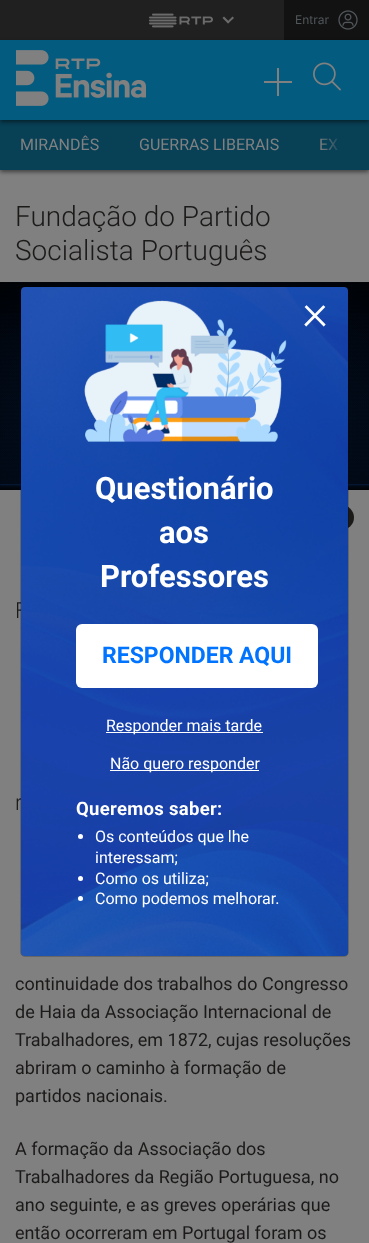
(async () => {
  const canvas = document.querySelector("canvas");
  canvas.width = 369;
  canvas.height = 1243;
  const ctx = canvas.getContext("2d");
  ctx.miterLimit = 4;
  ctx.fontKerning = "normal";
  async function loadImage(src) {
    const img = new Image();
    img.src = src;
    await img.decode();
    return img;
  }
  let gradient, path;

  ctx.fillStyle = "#808080";
  ctx.fillRect(0, 0, 369, 1243);
  ctx.fillStyle = "#202020";
  ctx.fillRect(0, 0, 284, 40);
  ctx.drawImage(await loadImage("img/1.png"), 149, 13, 64, 15);
  ctx.fillStyle = "#6b6b6b";
  path = new Path2D("M232.5 16.5L234 18L228 23.5L227 22Z");
  ctx.fill(path);
  path = new Path2D("M224 16.5L229.5 22L228 23.5L222.5 18Z");
  ctx.fill(path);
  ctx.fillStyle = "#121212";
  ctx.fillRect(284, 0, 85, 40);
  ctx.drawImage(await loadImage("img/2.png"), 338, 10, 20, 20);
  ctx.fillStyle = "rgba(0, 0, 0, 0.5)";
  ctx.filter = "blur(2px)";
  ctx.beginPath();
  ctx.rect(0, 122, 369, 50);
  ctx.fill();
  ctx.filter = "none";
  ctx.fillStyle = "#084056";
  ctx.fillRect(0, 120, 344, 50);
  gradient = ctx.createRadialGradient(185, 685.35, 0, 185, 685.35, 261);
  gradient.addColorStop(0, "#031127");
  gradient.addColorStop(1, "#010307");
  ctx.fillStyle = gradient;
  ctx.beginPath();
  ctx.rect(0, 282, 369, 208);
  ctx.save();
  ctx.clip();
  ctx.scale(1, 147 / 261);
  ctx.fillRect(0, 0, 369, 2207);
  ctx.restore();
  ctx.drawImage(await loadImage("img/5.png"), 0, 283, 369, 206);
  gradient = ctx.createLinearGradient(185, 490, 185, 282);
  gradient.addColorStop(0, "rgba(7, 36, 81, 0)");
  gradient.addColorStop(0.02, "rgba(7, 36, 81, 0.2)");
  gradient.addColorStop(0.03, "rgba(7, 36, 81, 0.8)");
  gradient.addColorStop(0.03, "rgba(7, 36, 81, 0.2)");
  gradient.addColorStop(1, "rgba(7, 36, 81, 0)");
  ctx.fillStyle = gradient;
  ctx.fillRect(0, 313, 369, 176);
  ctx.fillStyle = "#1c1a19";
  ctx.beginPath();
  ctx.arc(341.5, 517.5, 12.5, 0, Math.PI * 2);
  ctx.fill();
  ctx.font = "12px Inter";
  ctx.fillStyle = "#50565a";
  ctx.fillText("Entrar", 295, 24);
  ctx.font = "16px Roboto";
  ctx.fillStyle = "#808080";
  for (const [text, x, y] of [
    ["MIRANDÊS", 20, 150],
    ["GUERRAS LIBERAIS", 139, 150],
    ["EX", 319, 150],
  ]) {
    ctx.fillText(text, x, y);
  }
  gradient = ctx.createLinearGradient(369, 145, 319, 145);
  gradient.addColorStop(0, "#084056");
  gradient.addColorStop(0.5, "#084056");
  gradient.addColorStop(1, "rgba(8, 64, 86, 0)");
  ctx.fillStyle = gradient;
  ctx.fillRect(320, 120, 49, 50);
  ctx.fillStyle = "rgba(0, 0, 0, 0.5)";
  ctx.filter = "blur(2px)";
  ctx.beginPath();
  ctx.rect(0, 42, 369, 80);
  ctx.fill();
  ctx.filter = "none";
  for (const [x, y, w, h, color] of [
    [0, 40, 369, 80, "#035b7f"],
    [277, 68, 2, 28, "#808080"],
    [264, 81, 28, 2, "#808080"],
  ]) {
    ctx.fillStyle = color;
    ctx.fillRect(x, y, w, h);
  }
  ctx.drawImage(await loadImage("img/4.png"), 313, 62, 28, 29);
  ctx.drawImage(await loadImage("img/3.png"), 16, 50, 130, 56);
  ctx.font = "300 28px Roboto";
  ctx.fillStyle = "#1c1a19";
  ctx.fillText("Fundação do Partido", 15, 226);
  ctx.fillText("Socialista Português", 15, 260);
  ctx.font = "300 22px Roboto";
  ctx.fillText("F", 15, 618);
  ctx.fillText("r", 15, 810);
  ctx.font = "18px Roboto";
  for (const [text, x, y] of [
    ["continuidade dos trabalhos do Congresso", 15, 990],
    ["de Haia da Associação Internacional de", 15, 1018],
    ["Trabalhadores, em 1872, cujas resoluções", 15, 1046],
    ["abriram o caminho à formação de", 15, 1074],
    ["partidos nacionais.", 15, 1102],
    ["A formação da Associação dos", 15, 1155],
    ["Trabalhadores da Região Portuguesa, no", 15, 1183],
    ["ano seguinte, e as greves operárias que", 15, 1211],
    ["então ocorreram em Portugal foram os", 15, 1239],
  ]) {
    ctx.fillText(text, x, y);
  }
  ctx.drawImage(await loadImage("img/6.png"), 21, 287, 327, 669);
  ctx.beginPath();
  ctx.roundRect(20.5, 286.5, 328, 670, 4.5);
  ctx.strokeStyle = "rgba(0, 0, 0, 0.2)";
  ctx.stroke();
  ctx.font = "300 50px Roboto";
  ctx.fillStyle = "#ffffff";
  ctx.fillText("×", 302, 329);
  ctx.drawImage(await loadImage("img/7.png"), 84, 300, 203, 142);
  ctx.font = "bold 31px Roboto";
  for (const [text, x, y] of [
    ["Questionário", 95, 499],
    ["aos", 159, 543],
    ["Professores", 100, 587],
  ]) {
    ctx.fillText(text, x, y);
  }
  ctx.beginPath();
  ctx.roundRect(76, 624, 242, 64, 6);
  ctx.fill();
  ctx.font = "bold 23px Roboto";
  ctx.fillStyle = "#0074ff";
  ctx.fillText("RESPONDER AQUI", 102, 663);
  ctx.fillStyle = "#ffffff";
  ctx.fillRect(106, 732, 157, 1);
  ctx.font = "16px Roboto";
  ctx.fillText("Responder mais tarde", 106, 731);
  ctx.fillRect(110, 770, 149, 1);
  ctx.fillText("Não quero responder", 110, 769);
  ctx.letterSpacing = "0.3px";
  ctx.font = "bold 18.5px Roboto";
  ctx.fillText("Queremos saber:", 76, 815);
  ctx.beginPath();
  ctx.arc(80.5, 836.5, 2.5, 0, Math.PI * 2);
  ctx.fill();
  ctx.letterSpacing = "0px";
  ctx.font = "16px Roboto";
  ctx.fillText("Os conteúdos que lhe", 95, 842);
  ctx.fillText("interessam;", 95, 863);
  ctx.beginPath();
  ctx.arc(80.5, 878.5, 2.5, 0, Math.PI * 2);
  ctx.fill();
  ctx.fillText("Como os utiliza;", 95, 884);
  ctx.beginPath();
  ctx.arc(80.5, 898.5, 2.5, 0, Math.PI * 2);
  ctx.fill();
  ctx.fillText("Como podemos melhorar.", 95, 904);
})();
